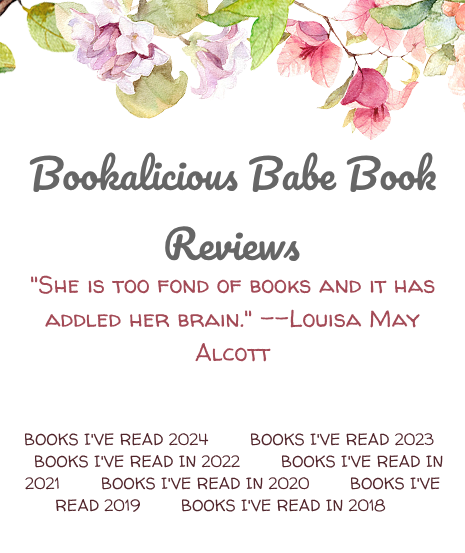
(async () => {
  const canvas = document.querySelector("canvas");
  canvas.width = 465;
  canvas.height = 553;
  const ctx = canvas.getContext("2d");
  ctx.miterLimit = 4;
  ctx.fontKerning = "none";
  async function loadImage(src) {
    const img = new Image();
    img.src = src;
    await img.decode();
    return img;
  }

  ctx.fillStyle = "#ffffff";
  ctx.fillRect(0, 0, 465, 553);
  ctx.drawImage(await loadImage("img/1.png"), 0, 0, 465, 140);
  ctx.font = "40px Pacifico";
  ctx.fillStyle = "#666666";
  ctx.fillText("Bookalicious Babe Book", 29, 190);
  ctx.fillText("Reviews", 163, 260);
  ctx.font = "24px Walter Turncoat";
  ctx.fillStyle = "#a34a56";
  for (const [text, x, y] of [
    ["\"She is too fond of books and it has", 30, 293],
    ["addled her brain.\" --Louisa May", 45, 327],
    ["Alcott", 195, 361],
  ]) {
    ctx.fillText(text, x, y);
  }
  ctx.font = "16px Walter Turncoat";
  ctx.fillStyle = "#51252b";
  for (const [text, x, y] of [
    ["BOOKS I'VE READ 2024", 24, 445],
    ["BOOKS I'VE READ 2023", 250, 445],
    ["BOOKS I'VE READ IN 2022", 34, 467],
    ["BOOKS I'VE READ IN", 281, 467],
    ["2021", 25, 489],
    ["BOOKS I'VE READ IN 2020", 101, 489],
    ["BOOKS I'VE", 350, 489],
    ["READ 2019", 55, 511],
    ["BOOKS I'VE READ IN 2018", 181, 511],
  ]) {
    ctx.fillText(text, x, y);
  }
})();
